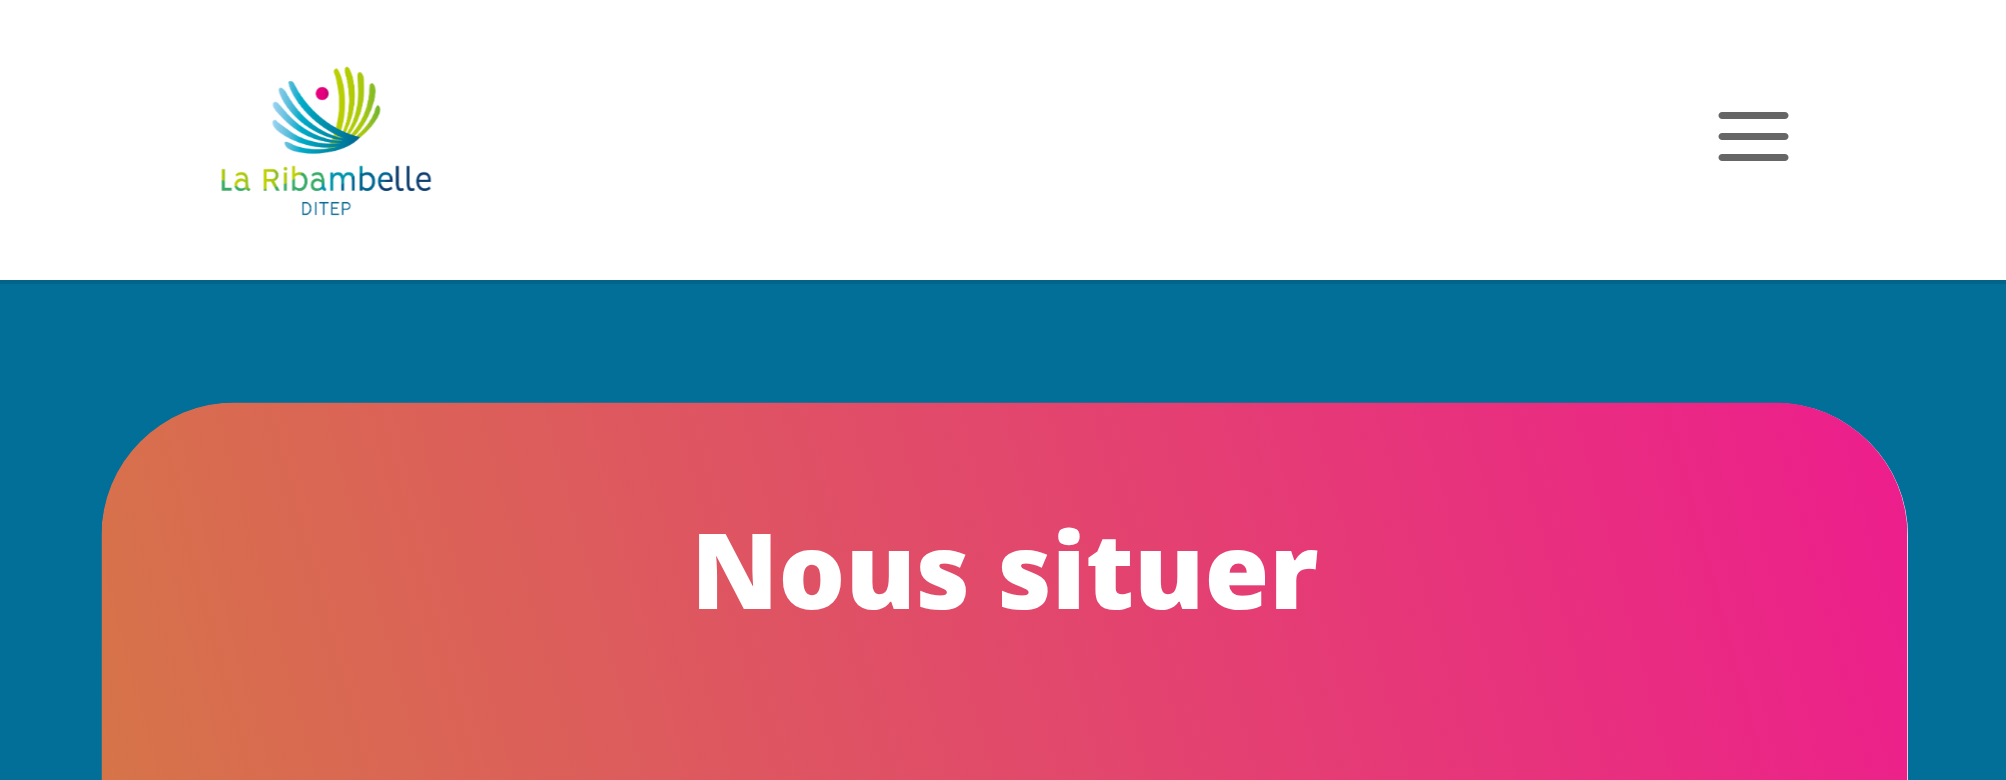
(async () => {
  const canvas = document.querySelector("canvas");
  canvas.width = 2006;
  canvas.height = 780;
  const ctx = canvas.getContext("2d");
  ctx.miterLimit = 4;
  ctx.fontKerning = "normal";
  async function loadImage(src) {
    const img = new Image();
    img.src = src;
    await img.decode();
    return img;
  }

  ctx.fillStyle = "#016f97";
  ctx.fillRect(0, 0, 2006, 780);
  ctx.fillStyle = "#016488";
  ctx.fillRect(0, 280, 2006, 4);
  ctx.fillStyle = "#ffffff";
  ctx.fillRect(0, 0, 2006, 280);
  ctx.drawImage(await loadImage("img/1.png"), 221, 66, 211, 150);
  ctx.drawImage(await loadImage("img/2.png"), 1718, 112, 71, 49);
  ctx.beginPath();
  ctx.roundRect(102, 403, 1806, 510, 133);
  ctx.fill();
  ctx.drawImage(await loadImage("img/3.png"), 101, 402, 1807, 378);
  ctx.font = "800 105px Open Sans";
  ctx.fillText("Nous situer", 691, 609);
})();
